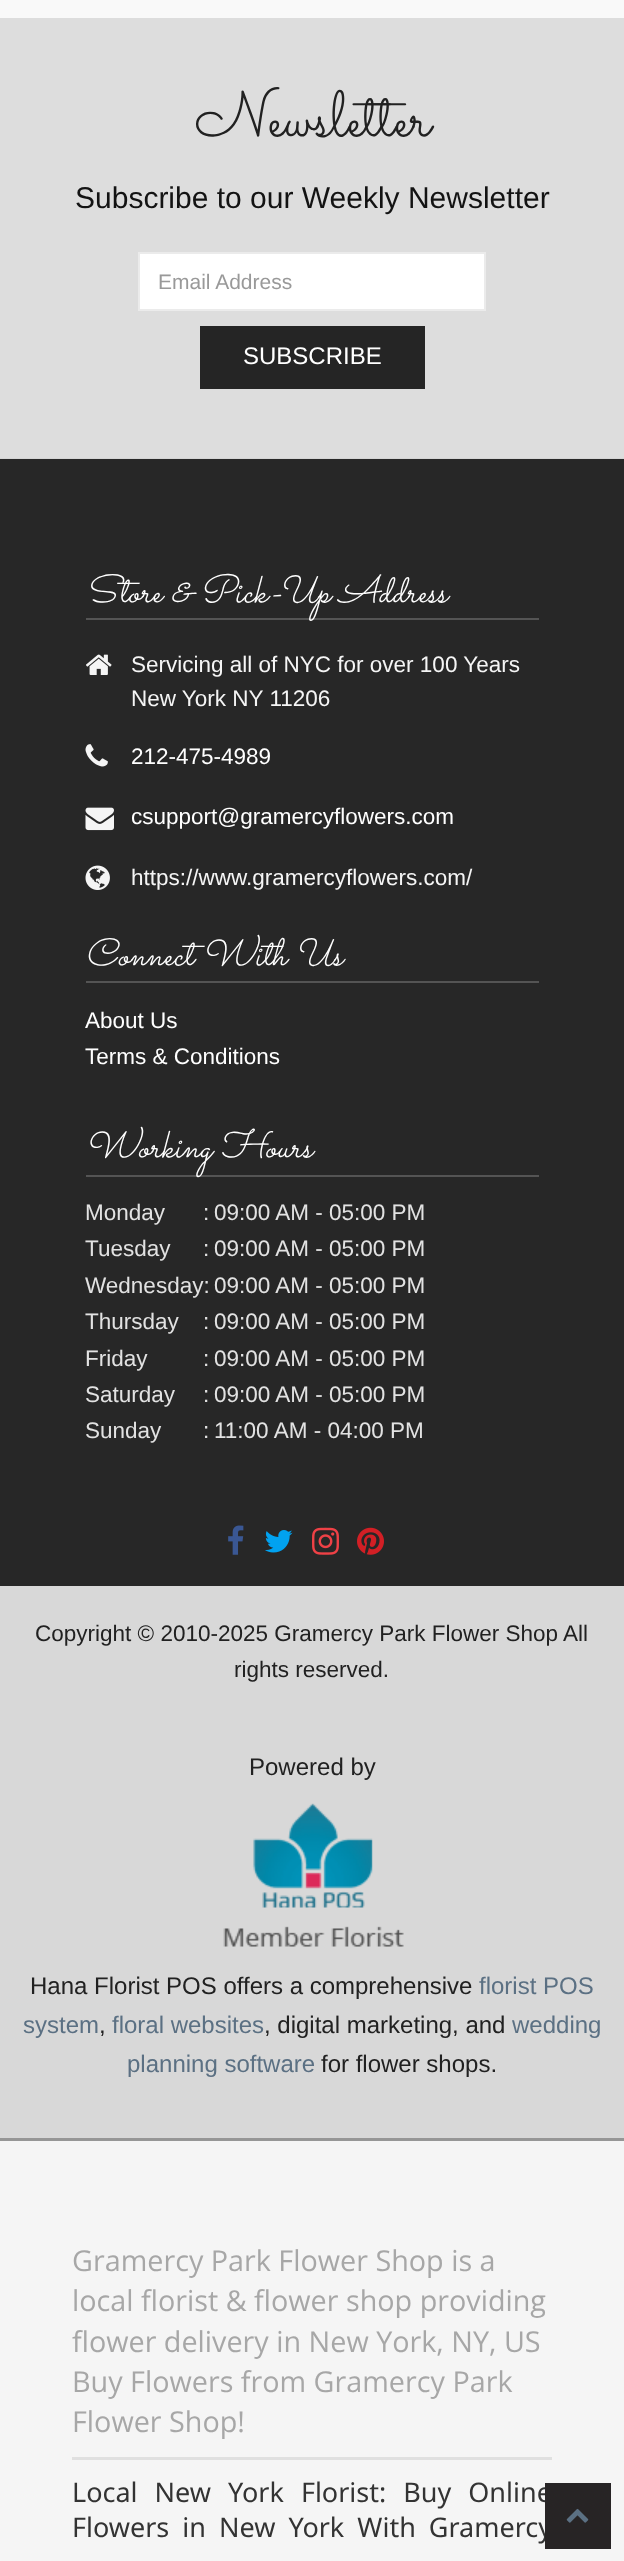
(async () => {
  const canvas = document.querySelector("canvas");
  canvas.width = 624;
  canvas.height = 2561;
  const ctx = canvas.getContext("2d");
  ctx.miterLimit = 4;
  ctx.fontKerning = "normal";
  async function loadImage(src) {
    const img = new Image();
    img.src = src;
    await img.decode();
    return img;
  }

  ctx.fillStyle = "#f9f9f9";
  ctx.fillRect(0, 0, 624, 2561);
  ctx.fillStyle = "#dddddd";
  ctx.fillRect(0, 18, 624, 440);
  ctx.fillStyle = "#ffffff";
  ctx.beginPath();
  ctx.rect(139, 253, 346, 57);
  ctx.fill();
  ctx.strokeStyle = "#ebebeb";
  ctx.lineWidth = 2;
  ctx.stroke();
  for (const [x, y, w, h, color] of [
    [200, 326, 225, 63, "#252525"],
    [0, 458, 624, 1, "#d4d4d4"],
    [0, 459, 624, 1127, "#272727"],
    [86, 618, 453, 2, "#545454"],
  ]) {
    ctx.fillStyle = color;
    ctx.fillRect(x, y, w, h);
  }
  ctx.drawImage(await loadImage("img/1.png"), 86, 654, 26, 21);
  ctx.drawImage(await loadImage("img/2.png"), 85, 744, 23, 23);
  ctx.drawImage(await loadImage("img/3.png"), 85, 807, 29, 24);
  ctx.drawImage(await loadImage("img/4.png"), 85, 865, 25, 25);
  ctx.fillRect(86, 981, 453, 2);
  ctx.fillRect(86, 1175, 453, 2);
  ctx.drawImage(await loadImage("img/5.png"), 228, 1525, 16, 30);
  ctx.drawImage(await loadImage("img/6.png"), 265, 1530, 28, 23);
  ctx.drawImage(await loadImage("img/7.png"), 312, 1527, 27, 28);
  ctx.drawImage(await loadImage("img/8.png"), 357, 1527, 27, 28);
  ctx.fillStyle = "#d8d8d8";
  ctx.fillRect(0, 1586, 624, 552);
  ctx.drawImage(await loadImage("img/9.png"), 223, 1803, 181, 144);
  for (const [x, y, w, h, color] of [
    [0, 2141, 624, 420, "#f5f5f5"],
    [0, 2138, 624, 3, "#969696"],
    [72, 2457, 480, 3, "#e0e0e0"],
  ]) {
    ctx.fillStyle = color;
    ctx.fillRect(x, y, w, h);
  }
  ctx.font = "65px Sacramento";
  ctx.fillStyle = "#212121";
  ctx.fillText("Newsletter", 195, 136);
  ctx.font = "30px Liberation Sans";
  ctx.fillStyle = "#131313";
  ctx.fillText("Subscribe to our Weekly Newsletter", 75, 208);
  ctx.font = "21px Liberation Sans";
  ctx.fillStyle = "#999999";
  ctx.fillText("Email Address", 158, 289);
  ctx.font = "24px Liberation Sans";
  ctx.fillStyle = "#ffffff";
  ctx.fillText("SUBSCRIBE", 243, 364);
  ctx.font = "italic 38.25px Sacramento";
  ctx.fillText("Store & Pick-Up Address", 85, 602);
  ctx.font = "22.5px Liberation Sans";
  ctx.fillStyle = "#f5f5f5";
  ctx.fillText("Servicing all of NYC for over 100 Years", 131, 672);
  ctx.fillText("New York NY 11206", 131, 706);
  ctx.fillStyle = "#ffffff";
  ctx.fillText("212-475-4989", 131, 764);
  ctx.fillText("csupport@gramercyflowers.com", 131, 824);
  ctx.fillStyle = "#f5f5f5";
  ctx.fillText("https://www.gramercyflowers.com/", 131, 885);
  ctx.font = "italic 38.25px Sacramento";
  ctx.fillStyle = "#ffffff";
  ctx.fillText("Connect With Us", 85, 965);
  ctx.font = "22.5px Liberation Sans";
  ctx.fillText("About Us", 85, 1028);
  ctx.fillText("Terms & Conditions", 85, 1064);
  ctx.font = "italic 38.25px Sacramento";
  ctx.fillText("Working Hours", 85, 1157);
  ctx.font = "22.5px Liberation Sans";
  ctx.fillStyle = "#e2e2e2";
  for (const [text, x, y] of [
    ["Monday", 85, 1220],
    [":", 203, 1220],
    ["09:00 AM - 05:00 PM", 214, 1220],
    ["Tuesday", 85, 1256],
    [":", 203, 1256],
    ["09:00 AM - 05:00 PM", 214, 1256],
    ["Wednesday:", 85, 1293],
    ["09:00 AM - 05:00 PM", 214, 1293],
    ["Thursday", 85, 1329],
    [":", 203, 1329],
    ["09:00 AM - 05:00 PM", 214, 1329],
    ["Friday", 85, 1366],
    [":", 203, 1366],
    ["09:00 AM - 05:00 PM", 214, 1366],
    ["Saturday", 85, 1402],
    [":", 203, 1402],
    ["09:00 AM - 05:00 PM", 214, 1402],
    ["Sunday", 85, 1438],
    [":", 203, 1438],
    ["11:00 AM - 04:00 PM", 214, 1438],
  ]) {
    ctx.fillText(text, x, y);
  }
  ctx.fillStyle = "#212121";
  ctx.fillText("Copyright © 2010-2025 Gramercy Park Flower Shop All", 35, 1641);
  ctx.fillText("rights reserved.", 234, 1677);
  ctx.font = "24px Liberation Sans";
  ctx.fillText("Powered by", 249, 1775);
  ctx.fillText("Hana Florist POS offers a comprehensive", 30, 1994);
  ctx.fillStyle = "#5b7083";
  ctx.fillText("florist POS", 479, 1994);
  ctx.fillText("system", 23, 2033);
  ctx.fillStyle = "#212121";
  ctx.fillText(",", 99, 2033);
  ctx.fillStyle = "#5b7083";
  ctx.fillText("floral websites", 112, 2033);
  ctx.fillStyle = "#212121";
  ctx.fillText(", digital marketing, and", 264, 2033);
  ctx.fillStyle = "#5b7083";
  ctx.fillText("wedding", 512, 2033);
  ctx.fillText("planning software", 127, 2072);
  ctx.fillStyle = "#212121";
  ctx.fillText("for flower shops.", 321, 2072);
  ctx.font = "28.75px Open Sans";
  ctx.fillStyle = "#a7a7a7";
  for (const [text, x, y] of [
    ["Gramercy Park Flower Shop is a", 72, 2271],
    ["local florist & flower shop providing", 72, 2311],
    ["flower delivery in New York, NY, US", 72, 2352],
    ["Buy Flowers from Gramercy Park", 72, 2392],
    ["Flower Shop!", 72, 2432],
  ]) {
    ctx.fillText(text, x, y);
  }
  ctx.wordSpacing = "10px";
  ctx.font = "27px Noto Sans";
  ctx.fillStyle = "#333333";
  ctx.fillText("Local New York Florist: Buy Online", 72, 2502);
  ctx.wordSpacing = "6px";
  ctx.fillText("Flowers in New York With Gramercy", 72, 2537);
  ctx.fillStyle = "#272425";
  ctx.fillRect(545, 2483, 66, 66);
  ctx.drawImage(await loadImage("img/10.png"), 566, 2508, 23, 15);
})();
